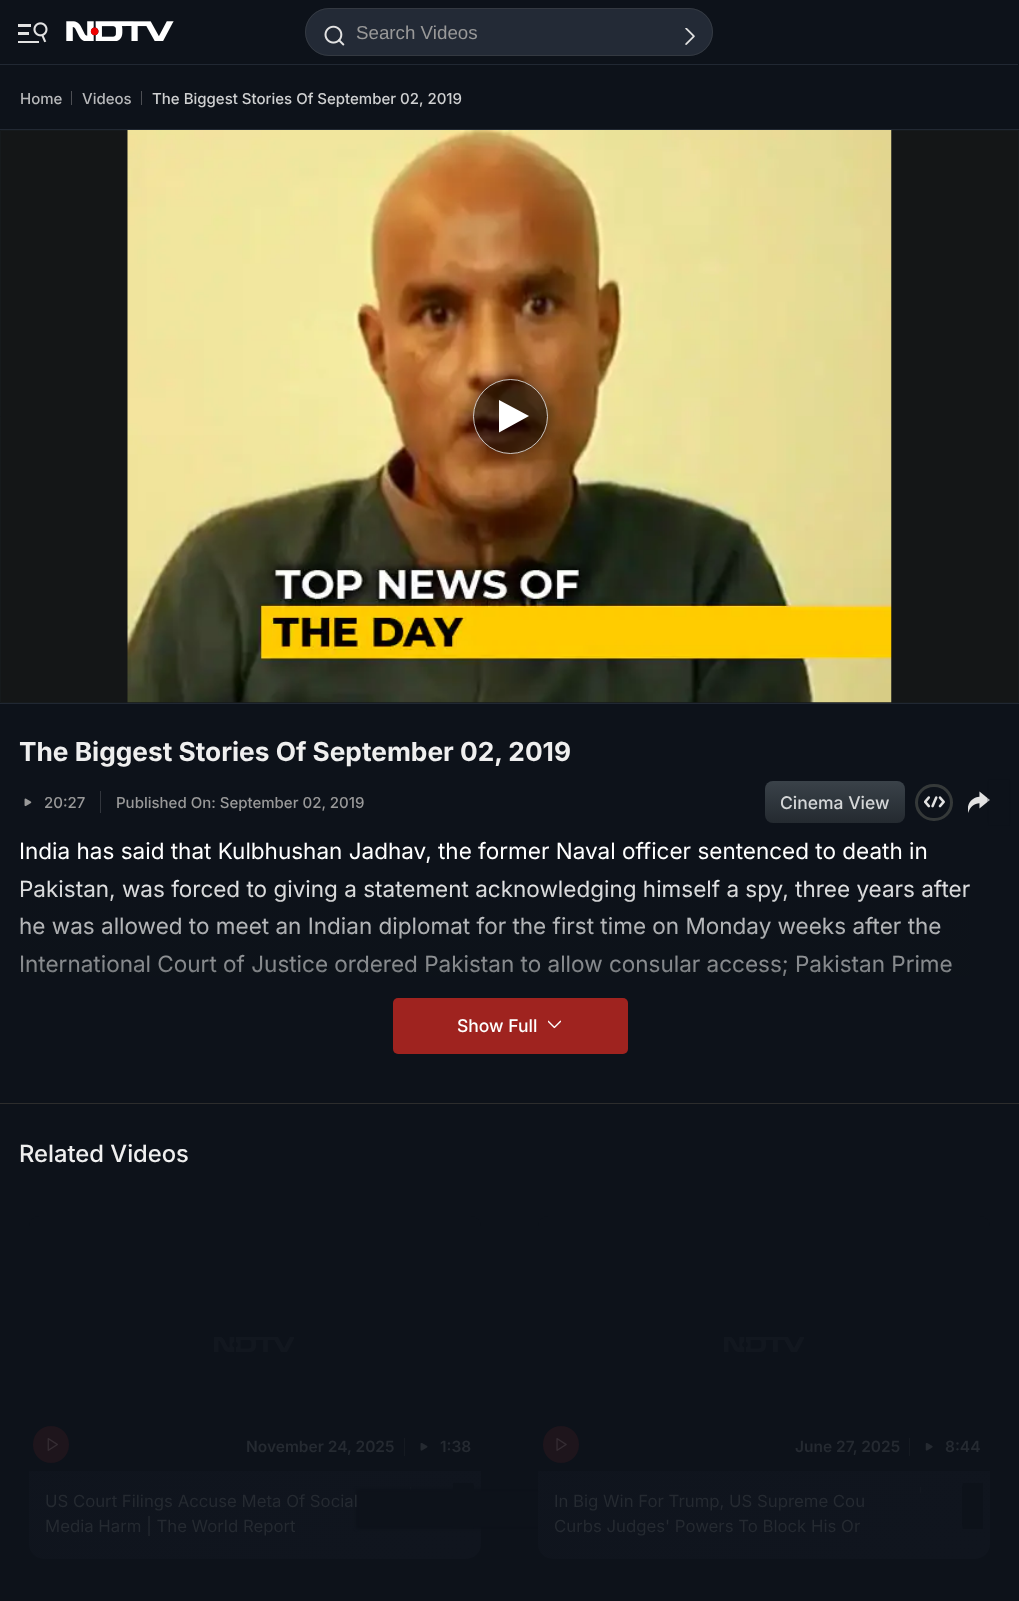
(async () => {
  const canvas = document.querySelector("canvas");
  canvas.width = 1019;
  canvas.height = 1601;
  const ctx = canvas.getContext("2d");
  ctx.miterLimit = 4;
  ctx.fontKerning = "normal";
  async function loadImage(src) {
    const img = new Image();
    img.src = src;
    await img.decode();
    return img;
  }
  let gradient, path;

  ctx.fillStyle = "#0d121a";
  ctx.fillRect(0, 0, 1019, 1601);
  ctx.fillStyle = "#212833";
  ctx.fillRect(0, 64, 1018, 1);
  ctx.drawImage(await loadImage("img/1.png"), 18, 22, 30, 21);
  ctx.drawImage(await loadImage("img/2.png"), 66, 21, 108, 20);
  ctx.fillStyle = "#232a36";
  ctx.beginPath();
  ctx.roundRect(305, 8, 408, 48, 24);
  ctx.fill();
  ctx.beginPath();
  ctx.roundRect(305.5, 8.5, 407, 47, 23.5);
  ctx.strokeStyle = "rgba(62, 66, 72, 0.65)";
  ctx.stroke();
  ctx.drawImage(await loadImage("img/3.png"), 324, 25, 21, 21);
  ctx.drawImage(await loadImage("img/4.png"), 685, 28, 10, 17);
  for (const [x, y, w, h, color] of [
    [71, 91, 1, 14, "#4d4f54"],
    [141, 91, 1, 14, "#4d4f54"],
    [0, 1103, 1019, 1, "#2d2d2d"],
    [0, 129, 1019, 1, "#212833"],
    [0, 703, 1019, 1, "#212833"],
  ]) {
    ctx.fillStyle = color;
    ctx.fillRect(x, y, w, h);
  }
  ctx.fillStyle = "#141617";
  ctx.beginPath();
  ctx.rect(0.5, 130.5, 1018, 572);
  ctx.fill();
  ctx.strokeStyle = "#161a1c";
  ctx.stroke();
  ctx.drawImage(await loadImage("img/5.png"), 127, 130, 765, 573);
  ctx.save();
  path = new Path2D("M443 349H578V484H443ZM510.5 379C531 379 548 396 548 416.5C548 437 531 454 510.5 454C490 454 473 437 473 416.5C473 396 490 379 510.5 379Z");
  ctx.clip(path, "evenodd");
  ctx.fillStyle = "rgba(0, 0, 0, 0.35)";
  ctx.filter = "blur(9.5px)";
  ctx.beginPath();
  ctx.roundRect(473, 379, 75, 75, 37.5);
  ctx.fill();
  ctx.filter = "none";
  ctx.restore();
  ctx.fillStyle = "rgba(0, 0, 0, 0.5)";
  ctx.beginPath();
  ctx.arc(510.5, 416.5, 37.5, 0, Math.PI * 2);
  ctx.fill();
  ctx.beginPath();
  ctx.arc(510.5, 416.5, 37, 0, Math.PI * 2);
  ctx.strokeStyle = "rgba(255, 255, 255, 0.75)";
  ctx.stroke();
  ctx.fillStyle = "#ffffff";
  path = new Path2D("M499 432.5V400L529 416Z");
  ctx.fill(path);
  ctx.fillStyle = "#32363d";
  ctx.fillRect(100, 791, 1, 22);
  ctx.drawImage(await loadImage("img/6.png"), 24, 798, 8, 9);
  gradient = ctx.createLinearGradient(835, 823, 835, 781);
  gradient.addColorStop(0, "#242a30");
  gradient.addColorStop(1, "#3a4249");
  ctx.fillStyle = gradient;
  ctx.beginPath();
  ctx.roundRect(765, 781, 140, 42, 8);
  ctx.fill();
  ctx.beginPath();
  ctx.roundRect(916.5, 785.5, 35, 34, 17);
  ctx.strokeStyle = "#353939";
  ctx.lineWidth = 3;
  ctx.stroke();
  ctx.drawImage(await loadImage("img/7.png"), 924, 796, 21, 12);
  ctx.drawImage(await loadImage("img/8.png"), 968, 791, 22, 22);
  path = new Path2D("M988.5 779.5H1009.5L1010 782V802.5V823L1009.5 825.5H988.5L988 820V784Z");
  ctx.strokeStyle = "#0d121a";
  ctx.lineWidth = 0.4;
  ctx.stroke(path);
  ctx.fillStyle = "#9f231f";
  ctx.beginPath();
  ctx.roundRect(393, 998, 235, 56, 5);
  ctx.fill();
  ctx.drawImage(await loadImage("img/9.png"), 548, 1020, 13, 9);
  gradient = ctx.createLinearGradient(100, 1166, 410, 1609);
  gradient.addColorStop(0, "#0f141d");
  gradient.addColorStop(1, "#10151e");
  ctx.fillStyle = gradient;
  ctx.beginPath();
  ctx.roundRect(29, 1216, 452, 343, 15);
  ctx.fill();
  ctx.fillStyle = "#0d121a";
  ctx.beginPath();
  ctx.roundRect(29, 1216, 452, 255, [10, 10, 0, 0]);
  ctx.fill();
  ctx.drawImage(await loadImage("img/10.png"), 214, 1337, 80, 15);
  ctx.fillStyle = "#1e151c";
  ctx.beginPath();
  ctx.roundRect(33, 1426, 36, 37, 18);
  ctx.fill();
  ctx.drawImage(await loadImage("img/11.png"), 47, 1438, 11, 13);
  ctx.fillStyle = "#151a21";
  ctx.fillRect(404, 1438, 1, 18);
  ctx.drawImage(await loadImage("img/12.png"), 420, 1443, 8, 8);
  ctx.drawImage(await loadImage("img/13.png"), 410, 1487, 1, 6);
  ctx.drawImage(await loadImage("img/14.png"), 452, 1498, 1, 11);
  ctx.fillStyle = "#0d121a";
  ctx.filter = "blur(1.5px)";
  ctx.beginPath();
  ctx.roundRect(356, 1489, 214, 40, 2.5);
  ctx.fill();
  ctx.filter = "none";
  path = new Path2D("M453 1483H473L474 1486V1506V1526L473 1529H453V1523V1488Z");
  ctx.fill(path);
  gradient = ctx.createLinearGradient(609, 1166, 919, 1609);
  gradient.addColorStop(0, "#0f141d");
  gradient.addColorStop(1, "#10151e");
  ctx.fillStyle = gradient;
  ctx.beginPath();
  ctx.roundRect(538, 1216, 452, 343, 15);
  ctx.fill();
  ctx.fillStyle = "#0d121a";
  ctx.beginPath();
  ctx.roundRect(538, 1216, 452, 255, [10, 10, 0, 0]);
  ctx.fill();
  ctx.drawImage(await loadImage("img/15.png"), 724, 1337, 80, 15);
  ctx.fillStyle = "#1e151c";
  ctx.beginPath();
  ctx.roundRect(543, 1426, 36, 37, 18);
  ctx.fill();
  ctx.drawImage(await loadImage("img/16.png"), 556, 1438, 11, 13);
  ctx.fillStyle = "#151a21";
  ctx.fillRect(909, 1438, 1, 18);
  ctx.drawImage(await loadImage("img/17.png"), 925, 1443, 8, 8);
  ctx.drawImage(await loadImage("img/18.png"), 920, 1487, 1, 6);
  ctx.fillStyle = "#0d121a";
  path = new Path2D("M963 1483H983V1486V1506V1526V1529H963L962 1523V1488Z");
  ctx.fill(path);
  ctx.font = "18.75px Liberation Sans";
  ctx.fillStyle = "#999999";
  ctx.fillText("Search Videos", 356, 39);
  ctx.font = "500 15px Inter";
  ctx.fillStyle = "#b7b8ba";
  ctx.fillText("Home", 20, 104);
  ctx.fillText("Videos", 82, 104);
  ctx.fillStyle = "#cfd0d1";
  ctx.fillText("The Biggest Stories Of September 02, 2019", 152, 104);
  ctx.font = "bold 26.25px Inter";
  ctx.fillStyle = "#efefef";
  ctx.fillText("The Biggest Stories Of September 02, 2019", 19, 761);
  ctx.font = "500 15px Inter";
  ctx.fillStyle = "#999999";
  ctx.fillText("20:27", 44, 808);
  ctx.fillText("Published On: September 02, 2019", 116, 808);
  ctx.font = "500 17.5px Inter";
  ctx.fillStyle = "#d5d7d8";
  ctx.fillText("Cinema View", 780, 809);
  ctx.font = "22.5px Inter";
  ctx.fillStyle = "#ffffff";
  for (const [text, x, y] of [
    ["India has said that Kulbhushan Jadhav, the former Naval officer sentenced to death in", 19, 859],
    ["Pakistan, was forced to giving a statement acknowledging himself a spy, three years after", 19, 897],
    ["he was allowed to meet an Indian diplomat for the first time on Monday weeks after the", 19, 934],
    ["International Court of Justice ordered Pakistan to allow consular access; Pakistan Prime", 19, 972],
  ]) {
    ctx.fillText(text, x, y);
  }
  gradient = ctx.createLinearGradient(509, 1070, 509, 833);
  gradient.addColorStop(0, "#0d1319");
  gradient.addColorStop(0.89, "rgba(13, 19, 25, 0)");
  ctx.fillStyle = gradient;
  ctx.fillRect(20, 879, 950, 97);
  ctx.font = "500 17.5px Inter";
  ctx.fillStyle = "#ffffff";
  ctx.fillText("Show Full", 457, 1032);
  ctx.font = "500 23.75px Inter";
  ctx.fillStyle = "#efefef";
  ctx.fillText("Related Videos", 19, 1162);
  ctx.font = "600 15.5px Inter";
  ctx.fillStyle = "#252a31";
  ctx.fillText("November 24, 2025", 246, 1452);
  ctx.fillText("1:38", 440, 1452);
  ctx.font = "16.75px Inter";
  ctx.fillText("US Court Filings Accuse Meta Of Social", 45, 1507);
  ctx.fillText("Media Harm | The World Report", 45, 1532);
  ctx.font = "600 15.5px Inter";
  ctx.fillText("June 27, 2025", 795, 1452);
  ctx.fillText("8:44", 945, 1452);
  ctx.font = "16.75px Inter";
  ctx.fillText("In Big Win For Trump, US Supreme Cou", 554, 1507);
  ctx.fillText("Curbs Judges' Powers To Block His Or", 554, 1532);
})();
